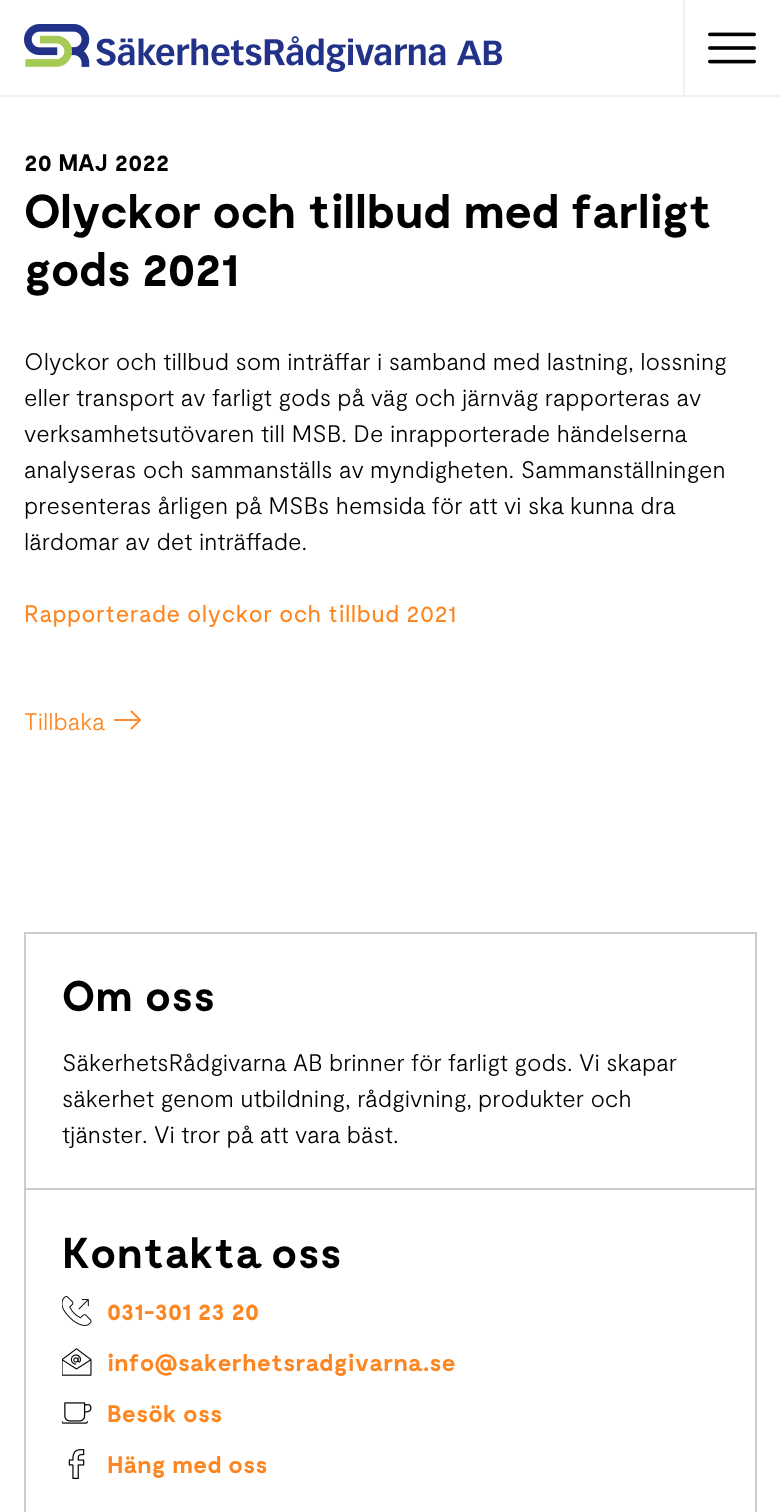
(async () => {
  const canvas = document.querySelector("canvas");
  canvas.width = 780;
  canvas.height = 1512;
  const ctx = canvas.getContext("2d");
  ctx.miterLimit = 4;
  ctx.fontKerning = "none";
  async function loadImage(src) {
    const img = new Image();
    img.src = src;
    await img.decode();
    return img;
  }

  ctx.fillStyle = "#ffffff";
  ctx.fillRect(0, 0, 780, 1512);
  ctx.fillStyle = "#f0f0f0";
  ctx.fillRect(0, 95, 780, 2);
  ctx.drawImage(await loadImage("img/1.png"), 24, 24, 479, 48);
  ctx.fillRect(683, 0, 2, 96);
  ctx.drawImage(await loadImage("img/2.png"), 708, 32, 48, 32);
  ctx.drawImage(await loadImage("img/3.png"), 114, 710, 27, 20);
  for (const [x, y, w, h, color] of [
    [24, 932, 732, 2, "#cccccc"],
    [755, 932, 2, 580, "#cccccc"],
    [24, 932, 2, 580, "#cccccc"],
    [26, 1188, 729, 2, "#cccccc"],
  ]) {
    ctx.fillStyle = color;
    ctx.fillRect(x, y, w, h);
  }
  ctx.drawImage(await loadImage("img/4.png"), 62, 1296, 30, 30);
  ctx.drawImage(await loadImage("img/5.png"), 62, 1348, 30, 28);
  ctx.drawImage(await loadImage("img/6.png"), 62, 1402, 30, 22);
  ctx.drawImage(await loadImage("img/7.png"), 68, 1449, 17, 30);
  ctx.font = "bold 24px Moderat";
  ctx.fillStyle = "#000000";
  ctx.fillText("20 MAJ 2022", 24, 171);
  ctx.letterSpacing = "-1.2px";
  ctx.font = "bold 48px Moderat";
  ctx.fillText("Olyckor", 24, 228);
  ctx.fillText("och tillbud", 212, 228);
  ctx.fillText("med farligt", 463, 228);
  ctx.fillText("gods 2021", 24, 286);
  ctx.letterSpacing = "0px";
  ctx.font = "300 24px Moderat";
  for (const [text, x, y] of [
    ["Olyckor och tillbud som inträffar", 24, 370],
    ["i samband med lastning, lossning", 377, 370],
    ["eller transport av farligt gods på väg och", 24, 406],
    ["järnväg rapporteras av", 462, 406],
    ["verksamhetsutövaren", 24, 442],
    ["till MSB. De inrapporterade händelserna", 261, 442],
    ["analyseras och sammanställs av", 24, 478],
    ["myndigheten. Sammanställningen", 370, 478],
    ["presenteras årligen", 24, 514],
    ["på MSBs hemsida för att vi ska kunna dra", 235, 514],
    ["lärdomar av det inträffade.", 24, 550],
  ]) {
    ctx.fillText(text, x, y);
  }
  ctx.font = "24px Moderat";
  ctx.fillStyle = "#fd8620";
  ctx.fillText("Rapporterade", 24, 622);
  ctx.fillText("olyckor", 187, 622);
  ctx.fillText("och tillbud", 279, 622);
  ctx.fillText("2021", 406, 622);
  ctx.font = "300 24px Moderat";
  ctx.fillText("Tillbaka", 24, 730);
  ctx.font = "bold 43.25px Moderat";
  ctx.fillStyle = "#000000";
  ctx.fillText("Om oss", 62, 1011);
  ctx.font = "300 24px Moderat";
  for (const [text, x, y] of [
    ["SäkerhetsRådgivarna AB brinner för", 62, 1071],
    ["farligt gods. Vi skapar", 448, 1071],
    ["säkerhet genom utbildning, rådgivning,", 62, 1107],
    ["produkter och", 478, 1107],
    ["tjänster. Vi tror på att vara bäst.", 62, 1143],
  ]) {
    ctx.fillText(text, x, y);
  }
  ctx.wordSpacing = "-3px";
  ctx.font = "bold 43.25px Moderat";
  ctx.fillText("Kontakta", 62, 1268);
  ctx.fillText("oss", 271, 1268);
  ctx.wordSpacing = "0px";
  ctx.font = "bold 24px Moderat";
  ctx.fillStyle = "#fd8620";
  for (const [text, x, y] of [
    ["031-301 23 20", 107, 1320],
    ["info@sakerhetsradgivarna.se", 107, 1371],
    ["Besök oss", 107, 1422],
    ["Häng med oss", 107, 1473],
  ]) {
    ctx.fillText(text, x, y);
  }
})();
